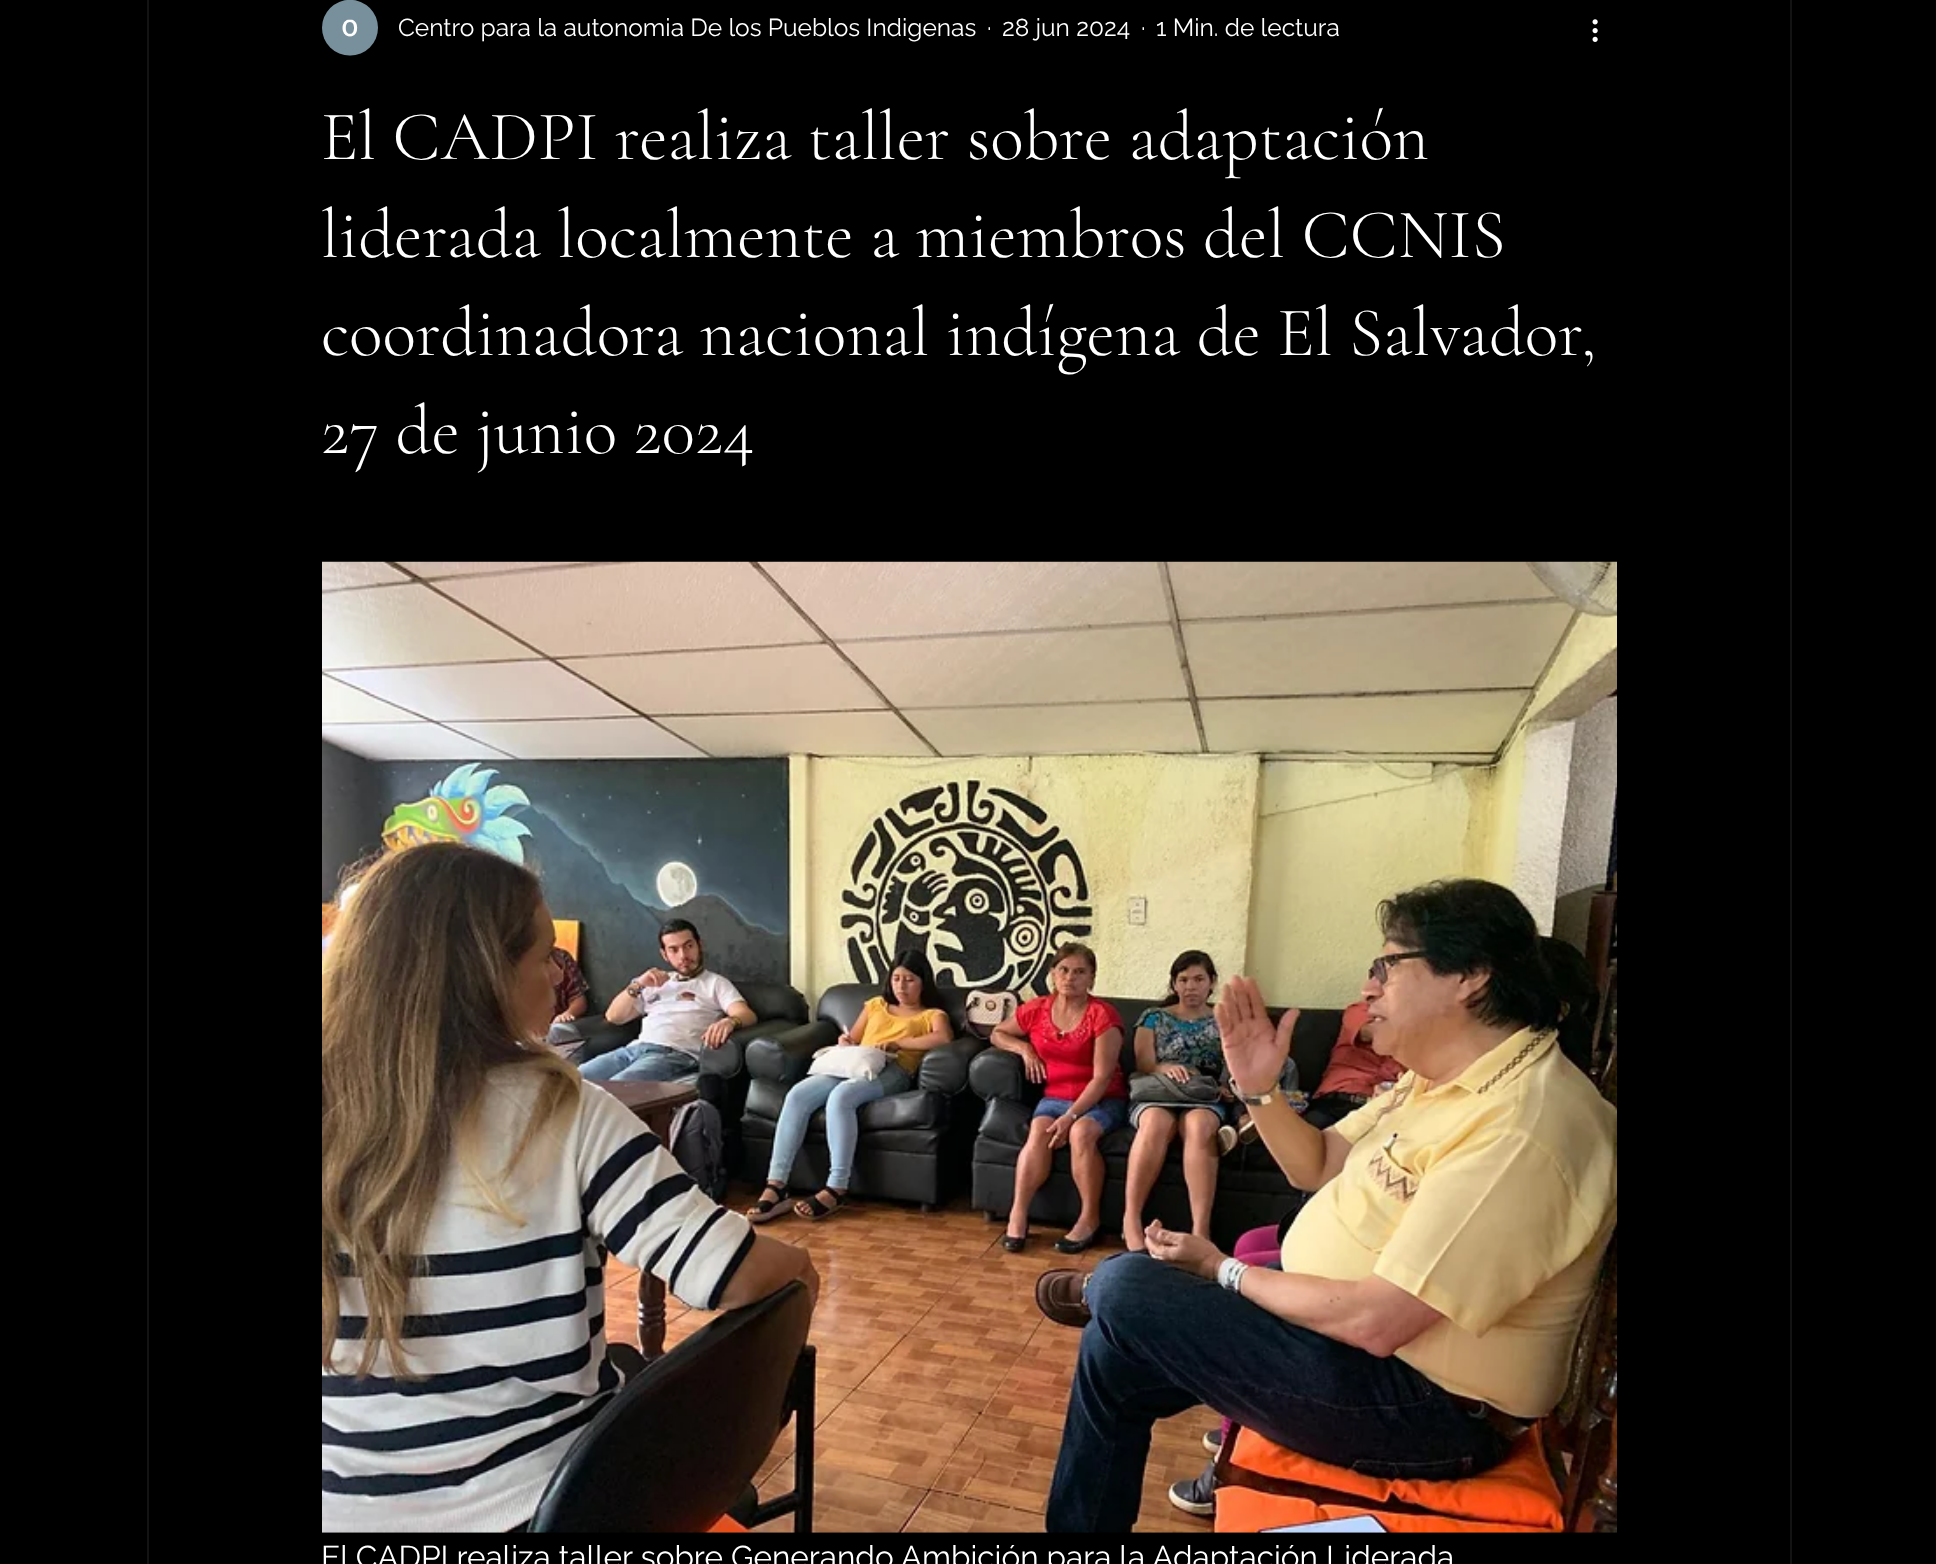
(async () => {
  const canvas = document.querySelector("canvas");
  canvas.width = 1936;
  canvas.height = 1564;
  const ctx = canvas.getContext("2d");
  ctx.miterLimit = 4;
  ctx.fontKerning = "normal";
  async function loadImage(src) {
    const img = new Image();
    img.src = src;
    await img.decode();
    return img;
  }

  ctx.fillStyle = "#000000";
  ctx.fillRect(0, 0, 1936, 1564);
  ctx.strokeStyle = "#131313";
  ctx.lineWidth = 2;
  ctx.strokeRect(148, -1, 1643, 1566);
  ctx.drawImage(await loadImage("img/1.png"), 322, 0, 56, 56);
  ctx.drawImage(await loadImage("img/2.png"), 1592, 19, 6, 23);
  ctx.drawImage(await loadImage("img/3.png"), 322, 561, 1295, 972);
  ctx.font = "24.5px Raleway";
  ctx.fillStyle = "#ffffff";
  for (const [text, x, y] of [
    ["Centro para la autonomia De los Pueblos Indigenas", 398, 36],
    ["·", 987, 36],
    ["28 jun 2024", 1002, 36],
    ["·", 1141, 36],
    ["1 Min. de lectura", 1156, 36],
  ]) {
    ctx.fillText(text, x, y);
  }
  ctx.font = "300 70px Cormorant Garamond";
  for (const [text, x, y] of [
    ["El CADPI realiza taller sobre adaptación", 321, 159],
    ["liderada localmente a miembros del CCNIS", 321, 257],
    ["coordinadora nacional indígena de El Salvador,", 321, 355],
    ["27 de junio 2024", 321, 453],
  ]) {
    ctx.fillText(text, x, y);
  }
  ctx.font = "31.5px Raleway";
  ctx.fillText("El CADPI realiza taller sobre Generando Ambición para la Adaptación Liderada", 321, 1568);
})();
